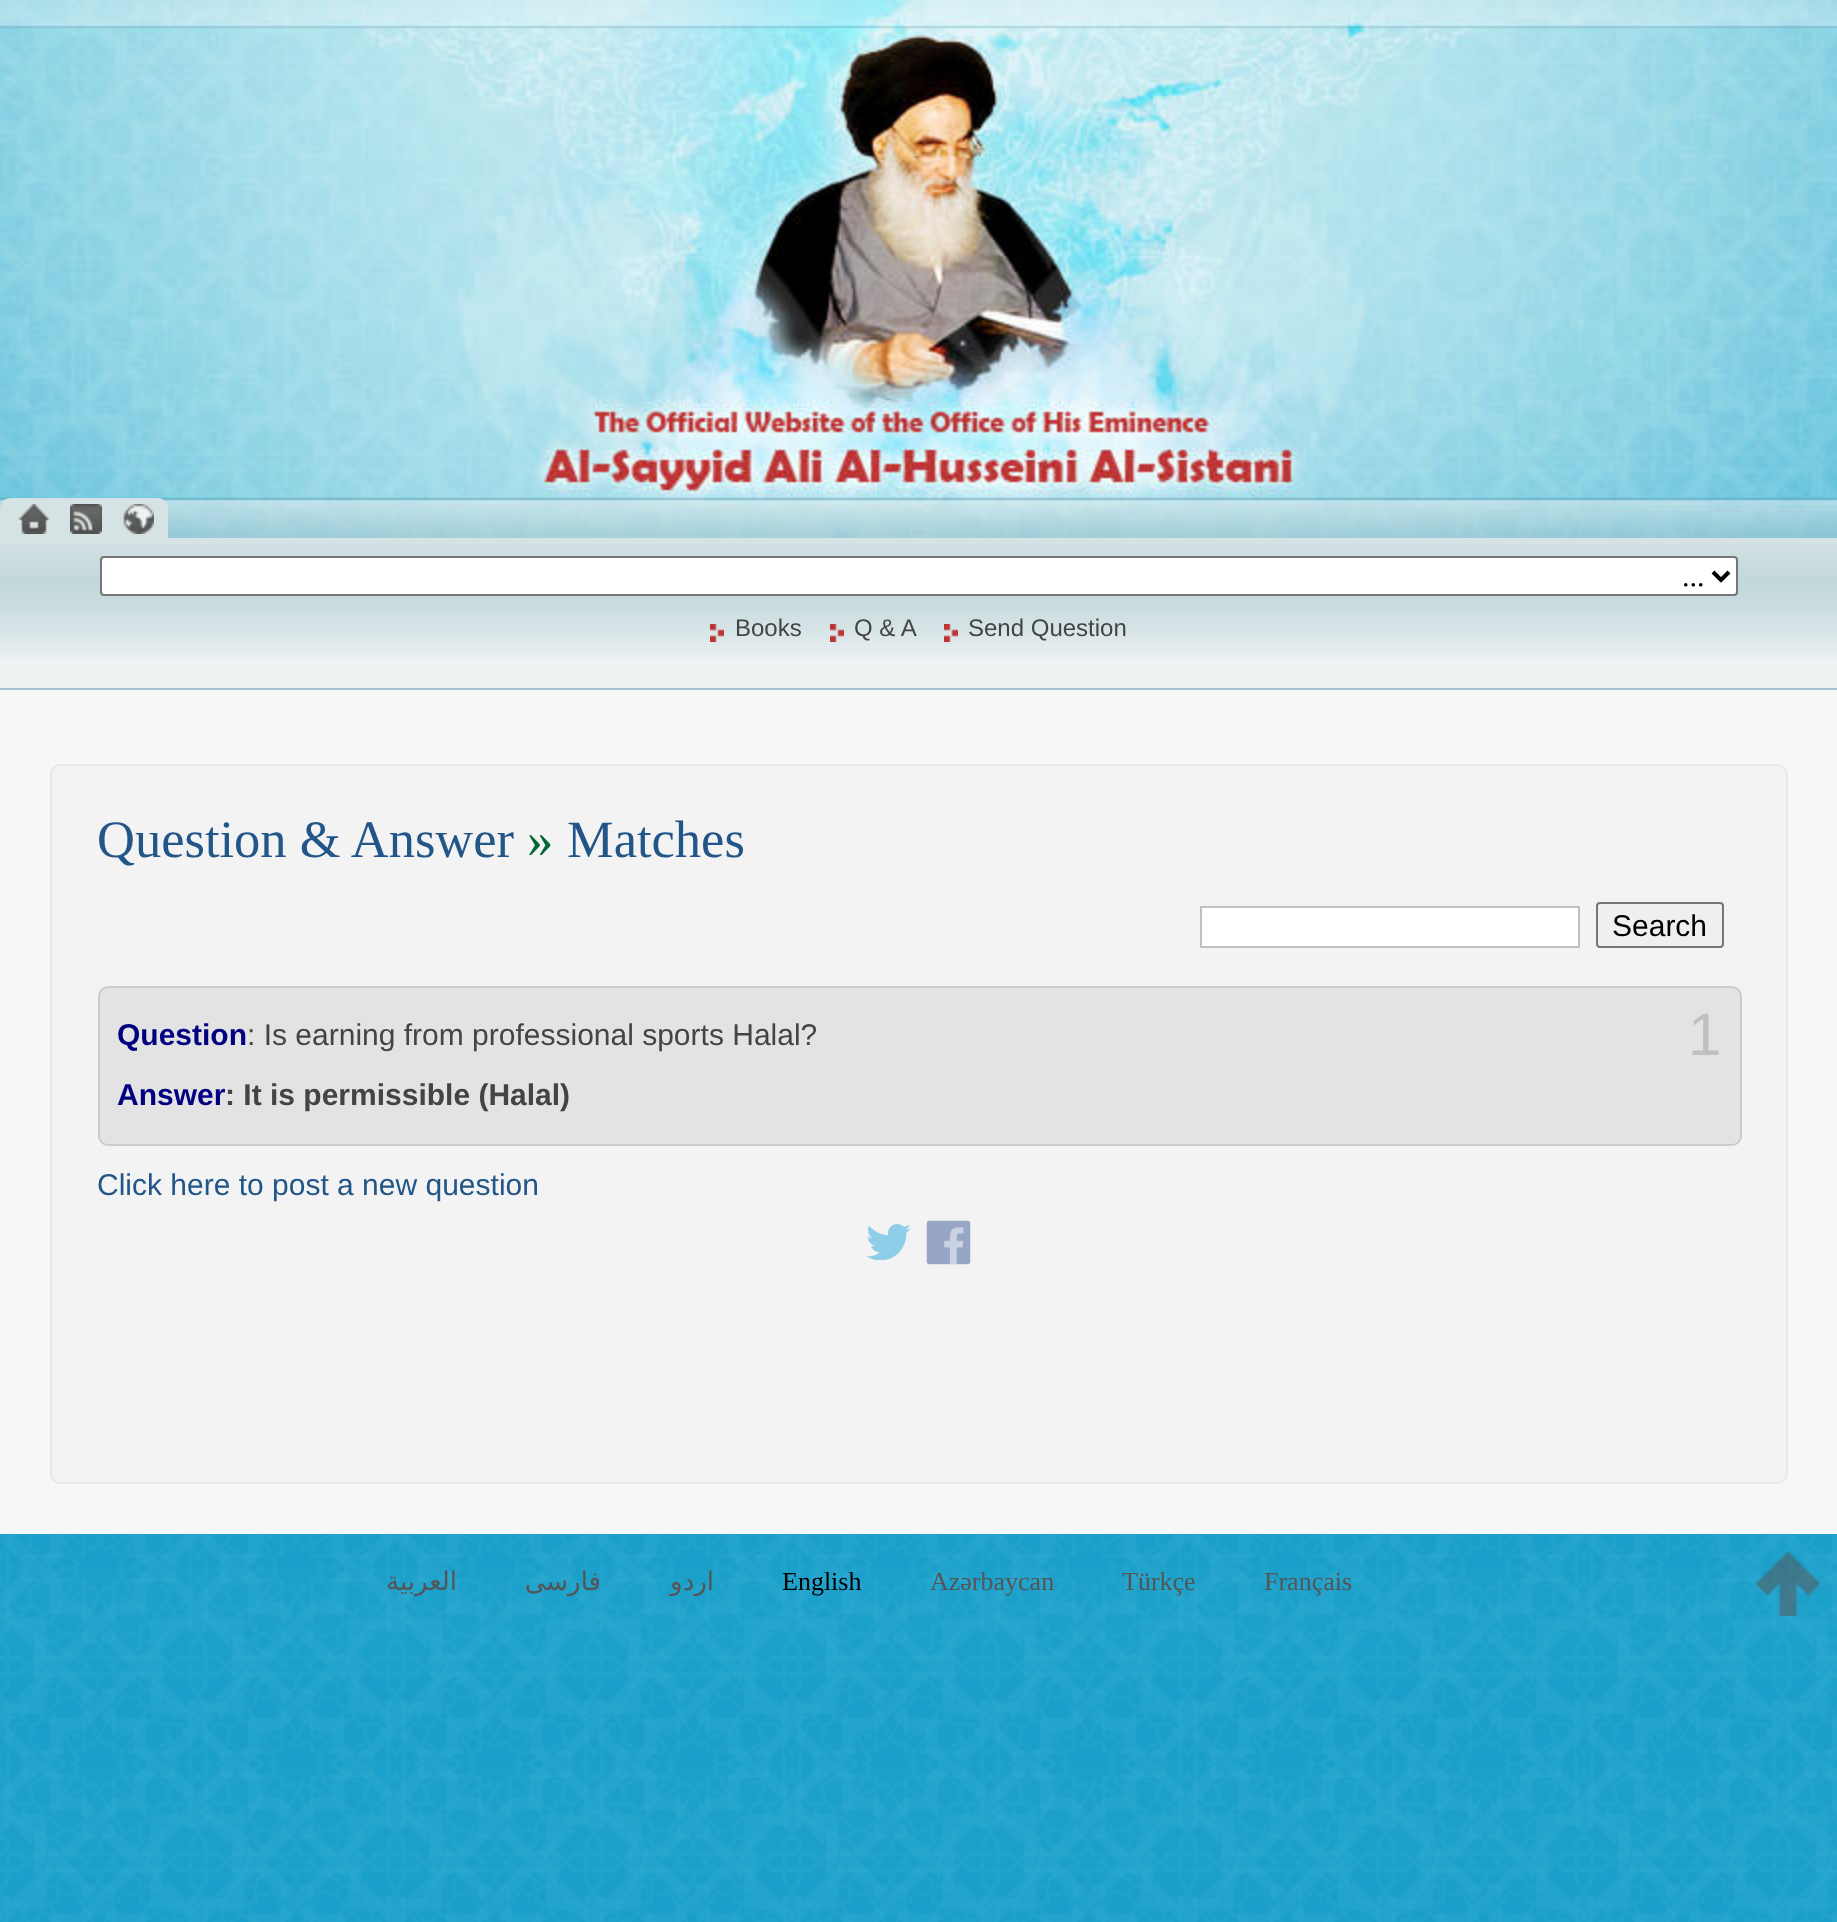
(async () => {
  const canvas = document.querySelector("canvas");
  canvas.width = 1837;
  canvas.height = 1922;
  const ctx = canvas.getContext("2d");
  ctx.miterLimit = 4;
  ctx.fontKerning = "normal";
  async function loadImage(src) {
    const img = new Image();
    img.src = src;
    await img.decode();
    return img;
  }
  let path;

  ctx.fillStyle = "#ffffff";
  ctx.fillRect(0, 0, 1837, 1922);
  ctx.drawImage(await loadImage("img/1.png"), 0, 1534, 1837, 388);
  ctx.drawImage(await loadImage("img/2.png"), 0, 0, 1837, 538);
  ctx.fillStyle = "#d5e3e5";
  ctx.beginPath();
  ctx.roundRect(0, 498, 168, 40, [10, 10, 0, 0]);
  ctx.fill();
  ctx.drawImage(await loadImage("img/3.png"), 18, 504, 32, 30);
  ctx.drawImage(await loadImage("img/4.png"), 70, 504, 32, 30);
  ctx.drawImage(await loadImage("img/5.png"), 123, 504, 31, 30);
  ctx.fillStyle = "#edf2f3";
  ctx.fillRect(0, 658, 1837, 30);
  ctx.drawImage(await loadImage("img/6.png"), 0, 538, 1837, 120);
  ctx.fillStyle = "#a1c4d0";
  ctx.fillRect(0, 688, 1837, 2);
  ctx.fillStyle = "#ffffff";
  ctx.beginPath();
  ctx.roundRect(101, 557, 1636, 38, 3);
  ctx.fill();
  ctx.strokeStyle = "#767676";
  ctx.lineWidth = 2;
  ctx.stroke();
  path = new Path2D("M1713 572L1721 580L1729 572");
  ctx.strokeStyle = "#000000";
  ctx.lineWidth = 4;
  ctx.stroke(path);
  ctx.drawImage(await loadImage("img/7.png"), 710, 624, 14, 18);
  ctx.drawImage(await loadImage("img/7.png"), 830, 624, 14, 18);
  ctx.drawImage(await loadImage("img/7.png"), 944, 624, 14, 18);
  ctx.fillStyle = "#f7f7f7";
  ctx.fillRect(0, 690, 1837, 844);
  ctx.fillStyle = "#f3f3f3";
  ctx.beginPath();
  ctx.roundRect(51, 765, 1736, 718, 9);
  ctx.fill();
  ctx.strokeStyle = "#e8e8e8";
  ctx.lineWidth = 2;
  ctx.stroke();
  ctx.fillStyle = "#ffffff";
  ctx.beginPath();
  ctx.rect(1201, 907, 378, 40);
  ctx.fill();
  ctx.strokeStyle = "#c0c0c0";
  ctx.stroke();
  ctx.fillStyle = "#efefef";
  ctx.beginPath();
  ctx.roundRect(1597, 903, 126, 44, 3);
  ctx.fill();
  ctx.strokeStyle = "#767676";
  ctx.stroke();
  ctx.fillStyle = "#e3e3e3";
  ctx.beginPath();
  ctx.roundRect(99, 987, 1642, 158, 9);
  ctx.fill();
  ctx.strokeStyle = "#cccccc";
  ctx.stroke();
  ctx.drawImage(await loadImage("img/8.png"), 866, 1224, 45, 36);
  ctx.drawImage(await loadImage("img/9.png"), 926, 1220, 45, 45);
  ctx.drawImage(await loadImage("img/10.png"), 1756, 1552, 64, 64);
  ctx.font = "30px Liberation Serif";
  ctx.fillStyle = "#000000";
  ctx.fillText("...", 1682, 586);
  ctx.font = "24px Liberation Sans";
  ctx.fillStyle = "#444444";
  for (const [text, x, y] of [
    ["Books", 735, 636],
    ["Q & A", 854, 636],
    ["Send Question", 968, 636],
  ]) {
    ctx.fillText(text, x, y);
  }
  ctx.font = "52.5px Liberation Serif";
  ctx.fillStyle = "#225588";
  ctx.fillText("Question & Answer", 97, 857);
  ctx.fillStyle = "#006633";
  ctx.fillText("»", 527, 857);
  ctx.fillStyle = "#225588";
  ctx.fillText("Matches", 567, 857);
  ctx.font = "30px Liberation Sans";
  ctx.fillStyle = "#000000";
  ctx.fillText("Search", 1612, 936);
  ctx.font = "bold 30px Liberation Sans";
  ctx.fillStyle = "#000080";
  ctx.fillText("Question", 117, 1045);
  ctx.font = "30px Liberation Sans";
  ctx.fillStyle = "#444444";
  ctx.fillText(": Is earning from professional sports Halal?", 247, 1045);
  ctx.font = "bold 30px Liberation Sans";
  ctx.fillStyle = "#000080";
  ctx.fillText("Answer", 117, 1105);
  ctx.fillStyle = "#444444";
  ctx.fillText(": It is permissible (Halal)", 225, 1105);
  ctx.font = "60px Liberation Sans";
  ctx.fillStyle = "#c0c0c0";
  ctx.fillText("1", 1688, 1055);
  ctx.font = "30px Liberation Sans";
  ctx.fillStyle = "#225588";
  ctx.fillText("Click here to post a new question", 97, 1195);
  ctx.direction = "rtl";
  ctx.font = "26px DejaVu Sans";
  ctx.fillStyle = "#555555";
  for (const [text, x, y] of [
    ["العربية", 457, 1590],
    ["فارسی", 601, 1590],
    ["اردو", 714, 1590],
  ]) {
    ctx.fillText(text, x, y);
  }
  ctx.direction = "ltr";
  ctx.font = "26px Liberation Serif";
  ctx.fillStyle = "#000000";
  ctx.fillText("English", 782, 1590);
  ctx.fillStyle = "#555555";
  for (const [text, x, y] of [
    ["Azərbaycan", 930, 1590],
    ["Türkçe", 1122, 1590],
    ["Français", 1264, 1590],
  ]) {
    ctx.fillText(text, x, y);
  }
})();
